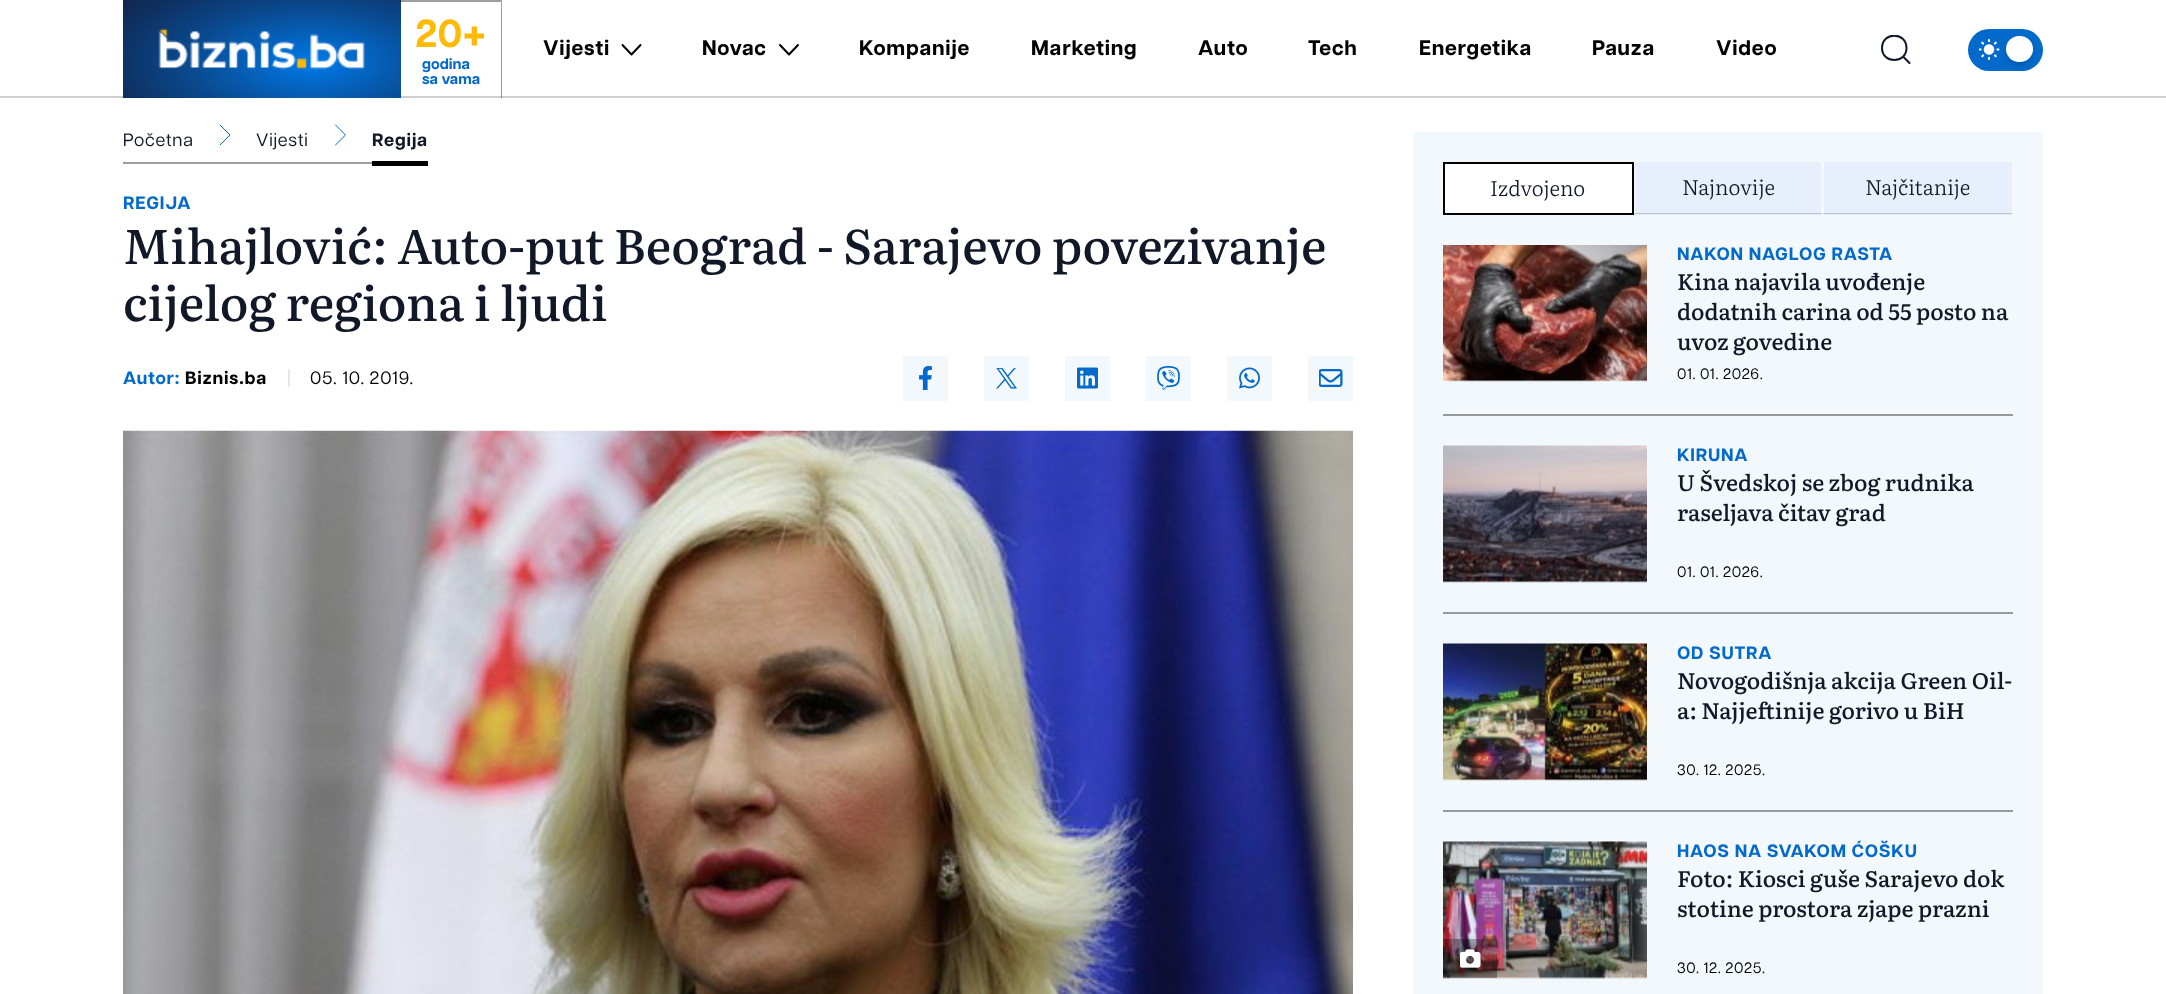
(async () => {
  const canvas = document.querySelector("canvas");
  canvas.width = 2166;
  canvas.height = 994;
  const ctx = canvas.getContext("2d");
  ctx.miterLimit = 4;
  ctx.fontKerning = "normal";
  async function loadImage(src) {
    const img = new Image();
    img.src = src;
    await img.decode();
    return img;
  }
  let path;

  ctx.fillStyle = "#ffffff";
  ctx.fillRect(0, 0, 2166, 994);
  ctx.fillStyle = "#cfcfcf";
  ctx.fillRect(0, 96, 2166, 2);
  ctx.drawImage(await loadImage("img/1.png"), 123, 0, 278, 98);
  ctx.fillStyle = "rgba(0, 0, 0, 0.38)";
  path = new Path2D("M400 0H502L501 2H400Z");
  ctx.fill(path);
  path = new Path2D("M502 0V98H501V2Z");
  ctx.fill(path);
  path = new Path2D("M622.5 45L631.5 54.5L640.5 45");
  ctx.strokeStyle = "#000000";
  ctx.lineWidth = 2;
  ctx.lineCap = "round";
  ctx.lineJoin = "round";
  ctx.stroke(path);
  path = new Path2D("M780 45L789 54.5L798 45");
  ctx.stroke(path);
  ctx.fillStyle = "#036acb";
  ctx.beginPath();
  ctx.roundRect(1968, 29, 75, 42, 21);
  ctx.fill();
  ctx.drawImage(await loadImage("img/2.png"), 1979, 39, 21, 21);
  ctx.drawImage(await loadImage("img/3.png"), 2029, 46, 4, 12);
  ctx.fillStyle = "rgba(0, 0, 0, 0.1)";
  ctx.filter = "blur(3px)";
  ctx.beginPath();
  ctx.roundRect(2009, 42, 21, 20, 10);
  ctx.fill();
  ctx.filter = "none";
  ctx.filter = "blur(4.5px)";
  ctx.beginPath();
  ctx.roundRect(2007, 44, 24, 22, 11);
  ctx.fill();
  ctx.filter = "none";
  ctx.fillStyle = "#ffffff";
  ctx.beginPath();
  ctx.roundRect(2006, 36, 27, 26, 13);
  ctx.fill();
  ctx.save();
  ctx.beginPath();
  ctx.rect(1881, 35, 30, 30);
  ctx.clip();
  path = new Path2D("M1903.5 57L1909.5 63M1882 48C1882 64 1906.5 64 1906.5 48C1906.5 31.5 1882 31.5 1882 48Z");
  ctx.strokeStyle = "#111827";
  ctx.stroke(path);
  ctx.restore();
  ctx.fillStyle = "#9e9e9e";
  ctx.fillRect(123, 162, 249, 2);
  path = new Path2D("M220 125L230 135L220 145");
  ctx.strokeStyle = "#036acb";
  ctx.lineWidth = 1;
  ctx.stroke(path);
  path = new Path2D("M335.5 125L345.5 135L335.5 145");
  ctx.stroke(path);
  for (const [x, y, w, h, color] of [
    [372, 161, 56, 5, "#000000"],
    [288, 369, 2, 18, "#e5e7eb"],
    [903, 356, 45, 45, "#f2f8fc"],
  ]) {
    ctx.fillStyle = color;
    ctx.fillRect(x, y, w, h);
  }
  ctx.drawImage(await loadImage("img/4.png"), 919, 366, 13, 24);
  ctx.fillRect(984, 356, 45, 45);
  ctx.drawImage(await loadImage("img/5.png"), 996, 368, 21, 21);
  ctx.fillRect(1065, 356, 45, 45);
  ctx.drawImage(await loadImage("img/6.png"), 1077, 367, 21, 22);
  ctx.fillRect(1146, 356, 45, 45);
  ctx.drawImage(await loadImage("img/7.png"), 1157, 366, 23, 24);
  ctx.fillRect(1227, 356, 45, 45);
  ctx.drawImage(await loadImage("img/8.png"), 1239, 367, 21, 22);
  ctx.fillRect(1308, 356, 45, 45);
  ctx.drawImage(await loadImage("img/9.png"), 1319, 369, 24, 18);
  ctx.drawImage(await loadImage("img/10.png"), 123, 430, 1230, 564);
  ctx.fillStyle = "#f3f8fd";
  ctx.fillRect(1413, 132, 630, 862);
  ctx.fillStyle = "#ffffff";
  ctx.beginPath();
  ctx.rect(1444, 163, 189, 51);
  ctx.fill();
  ctx.strokeStyle = "#000000";
  ctx.lineWidth = 2;
  ctx.lineJoin = "miter";
  ctx.stroke();
  ctx.fillStyle = "#e6effb";
  ctx.fillRect(1634, 162, 379, 53);
  ctx.fillStyle = "#f7fafd";
  path = new Path2D("M1822 162V214L1821 213V162Z");
  ctx.fill(path);
  ctx.fillStyle = "rgba(0, 0, 0, 0.19)";
  path = new Path2D("M1822 214H1634L1635 213H1821Z");
  ctx.fill(path);
  ctx.fillStyle = "#f7fafd";
  path = new Path2D("M1634 214V162H1635V213Z");
  ctx.fill(path);
  path = new Path2D("M2013 162V214L2012 213V162Z");
  ctx.fill(path);
  ctx.fillStyle = "rgba(0, 0, 0, 0.19)";
  path = new Path2D("M2013 214H1822L1824 213H2012Z");
  ctx.fill(path);
  ctx.fillStyle = "#f7fafd";
  path = new Path2D("M1822 214V162H1824V213Z");
  ctx.fill(path);
  ctx.fillStyle = "#f4f5f1";
  ctx.fillRect(1443, 380, 204, 1);
  ctx.drawImage(await loadImage("img/11.png"), 1443, 245, 204, 137);
  ctx.fillStyle = "#979a9d";
  ctx.fillRect(1443, 414, 570, 2);
  ctx.fillStyle = "#f4f5f1";
  ctx.fillRect(1443, 581, 204, 1);
  ctx.drawImage(await loadImage("img/12.png"), 1443, 445, 204, 138);
  ctx.fillStyle = "#979a9d";
  ctx.fillRect(1443, 612, 570, 2);
  ctx.fillStyle = "#f4f5f1";
  ctx.fillRect(1443, 779, 204, 1);
  ctx.drawImage(await loadImage("img/13.png"), 1443, 643, 204, 138);
  ctx.fillStyle = "#979a9d";
  ctx.fillRect(1443, 810, 570, 2);
  ctx.fillStyle = "#f4f5f1";
  ctx.fillRect(1443, 977, 204, 1);
  ctx.drawImage(await loadImage("img/14.png"), 1443, 841, 204, 138);
  ctx.fillStyle = "rgba(0, 0, 0, 0.3)";
  ctx.fillRect(1443, 939, 54, 39);
  ctx.drawImage(await loadImage("img/15.png"), 1460, 949, 21, 19);
  ctx.font = "bold 39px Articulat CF";
  ctx.fillStyle = "#ffba08";
  ctx.fillText("20+", 415, 47);
  ctx.font = "bold 15px Articulat CF";
  ctx.fillStyle = "#036acb";
  ctx.fillText("godina", 422, 69);
  ctx.fillText("sa vama", 422, 84);
  ctx.letterSpacing = "0.75px";
  ctx.font = "bold 21px Articulat CF";
  ctx.fillStyle = "#000000";
  for (const [text, x, y] of [
    ["Vijesti", 543, 55],
    ["Novac", 702, 55],
    ["Kompanije", 859, 55],
    ["Marketing", 1031, 55],
    ["Auto", 1198, 55],
    ["Tech", 1308, 55],
    ["Energetika", 1419, 55],
    ["Pauza", 1592, 55],
    ["Video", 1716, 55],
  ]) {
    ctx.fillText(text, x, y);
  }
  ctx.font = "18px Articulat CF";
  ctx.fillStyle = "#111827";
  ctx.fillText("Početna", 123, 146);
  ctx.fillText("Vijesti", 256, 146);
  ctx.font = "bold 18px Articulat CF";
  ctx.fillText("Regija", 372, 146);
  ctx.fillStyle = "#036acb";
  ctx.fillText("REGIJA", 123, 209);
  ctx.letterSpacing = "0px";
  ctx.font = "500 48px Literata";
  ctx.fillStyle = "#111827";
  ctx.fillText("Mihajlovi", 123, 264);
  ctx.font = "500 48px 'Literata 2'";
  ctx.fillText("ć", 347, 264);
  ctx.font = "500 48px Literata";
  ctx.fillText(": Auto-put Beograd - Sarajevo povezivanje", 372, 264);
  ctx.fillText("cijelog regiona i ljudi", 123, 321);
  ctx.letterSpacing = "0.75px";
  ctx.font = "bold 18px Articulat CF";
  ctx.fillStyle = "#036acb";
  ctx.fillText("Autor:", 123, 384);
  ctx.fillStyle = "#000000";
  ctx.fillText("Biznis.ba", 185, 384);
  ctx.font = "18px Articulat CF";
  ctx.fillText("05. 10. 2019.", 310, 384);
  ctx.letterSpacing = "0px";
  ctx.font = "300 21px Literata";
  ctx.fillStyle = "#111827";
  for (const [text, x, y] of [
    ["Izdvojeno", 1490, 196],
    ["Najnovije", 1682, 195],
    ["Najčitanije", 1865, 195],
  ]) {
    ctx.fillText(text, x, y);
  }
  ctx.letterSpacing = "0.75px";
  ctx.font = "bold 18px Articulat CF";
  ctx.fillStyle = "#036acb";
  ctx.fillText("NAKON NAGLOG RASTA", 1677, 260);
  ctx.letterSpacing = "0px";
  ctx.font = "500 22.5px 'Literata 2'";
  ctx.fillStyle = "#111827";
  for (const [text, x, y] of [
    ["Kina najavila uvođenje", 1677, 290],
    ["dodatnih carina od 55 posto na", 1677, 320],
    ["uvoz govedine", 1677, 350],
  ]) {
    ctx.fillText(text, x, y);
  }
  ctx.letterSpacing = "0.6px";
  ctx.font = "15px Articulat CF";
  ctx.fillStyle = "#000000";
  ctx.fillText("01. 01. 2026.", 1677, 379);
  ctx.letterSpacing = "0.75px";
  ctx.font = "bold 18px Articulat CF";
  ctx.fillStyle = "#036acb";
  ctx.fillText("KIRUNA", 1677, 461);
  ctx.letterSpacing = "0px";
  ctx.font = "500 22.5px 'Literata 2'";
  ctx.fillStyle = "#111827";
  ctx.fillText("U Švedskoj se zbog rudnika", 1677, 491);
  ctx.fillText("raseljava čitav grad", 1677, 521);
  ctx.letterSpacing = "0.6px";
  ctx.font = "15px Articulat CF";
  ctx.fillStyle = "#000000";
  ctx.fillText("01. 01. 2026.", 1677, 577);
  ctx.letterSpacing = "0.75px";
  ctx.font = "bold 18px Articulat CF";
  ctx.fillStyle = "#036acb";
  ctx.fillText("OD SUTRA", 1677, 659);
  ctx.letterSpacing = "0px";
  ctx.font = "500 22.5px 'Literata 2'";
  ctx.fillStyle = "#111827";
  ctx.fillText("Novogodišnja akcija Green Oil-", 1677, 689);
  ctx.fillText("a: Najjeftinije gorivo u BiH", 1677, 719);
  ctx.letterSpacing = "0.6px";
  ctx.font = "15px Articulat CF";
  ctx.fillStyle = "#000000";
  ctx.fillText("30. 12. 2025.", 1677, 775);
  ctx.letterSpacing = "0.75px";
  ctx.font = "bold 18px Articulat CF";
  ctx.fillStyle = "#036acb";
  ctx.fillText("HAOS NA SVAKOM ĆOŠKU", 1677, 857);
  ctx.letterSpacing = "0px";
  ctx.font = "500 22.5px 'Literata 2'";
  ctx.fillStyle = "#111827";
  ctx.fillText("Foto: Kiosci guše Sarajevo dok", 1677, 887);
  ctx.fillText("stotine prostora zjape prazni", 1677, 917);
  ctx.letterSpacing = "0.6px";
  ctx.font = "15px Articulat CF";
  ctx.fillStyle = "#000000";
  ctx.fillText("30. 12. 2025.", 1677, 973);
})();
